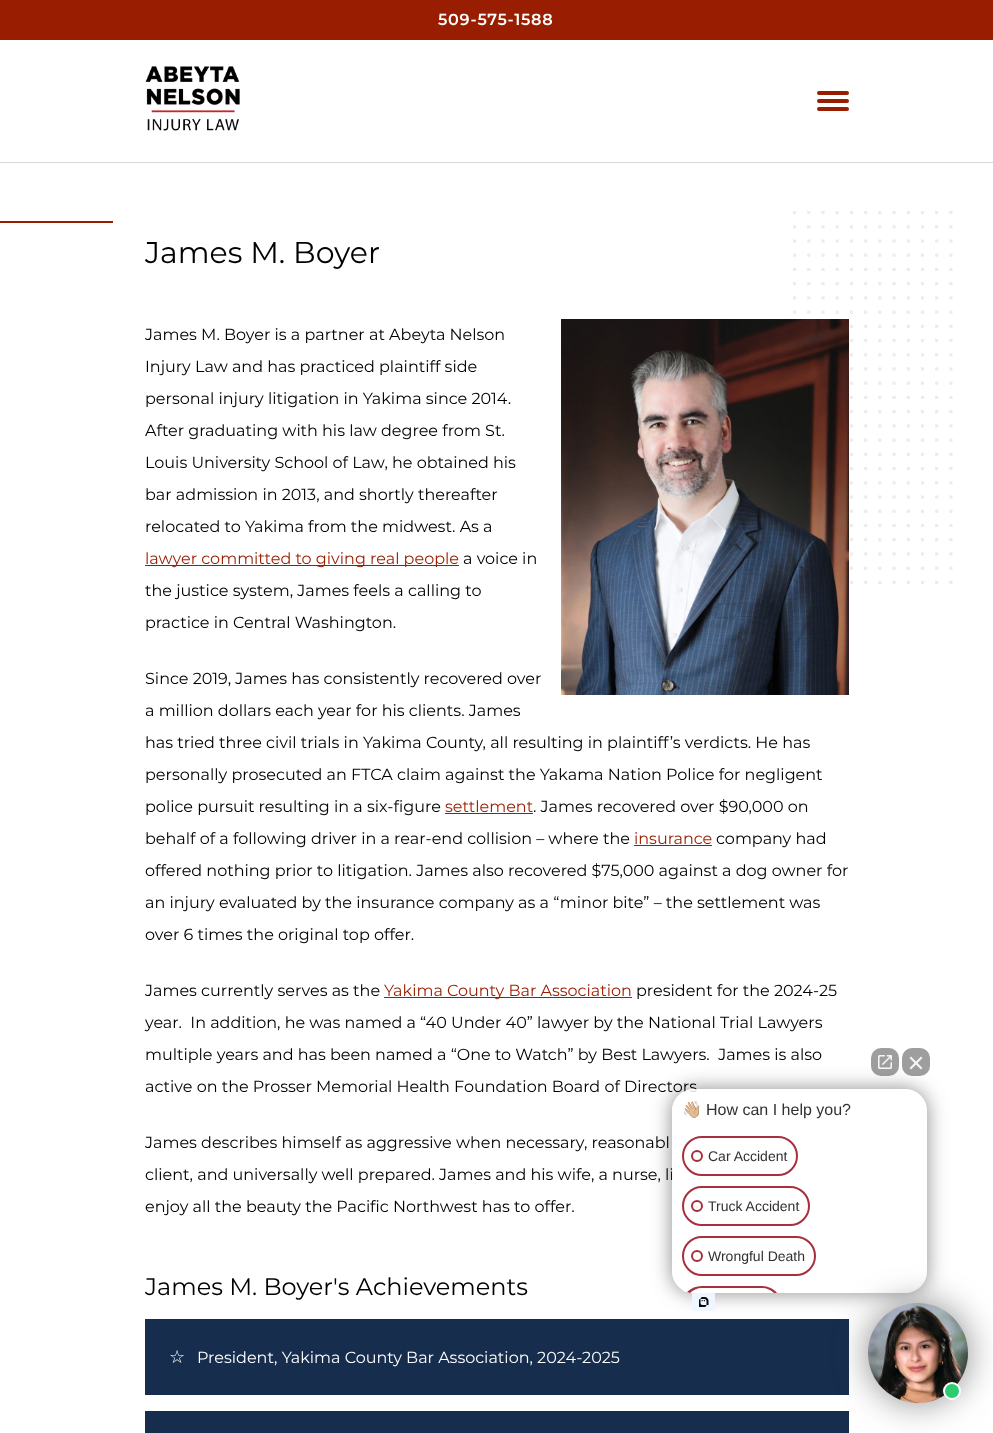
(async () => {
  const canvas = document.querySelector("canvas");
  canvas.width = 993;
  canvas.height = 1433;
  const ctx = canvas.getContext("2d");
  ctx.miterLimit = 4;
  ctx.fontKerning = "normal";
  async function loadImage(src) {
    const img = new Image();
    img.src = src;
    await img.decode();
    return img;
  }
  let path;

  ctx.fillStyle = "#ffffff";
  ctx.fillRect(0, 0, 993, 1433);
  ctx.fillStyle = "#991d00";
  ctx.fillRect(0, 0, 993, 40);
  ctx.drawImage(await loadImage("img/1.png"), 145, 66, 95, 65);
  ctx.beginPath();
  ctx.roundRect(817, 91, 32, 4, 2);
  ctx.fill();
  ctx.beginPath();
  ctx.roundRect(817, 99, 32, 4, 2);
  ctx.fill();
  ctx.beginPath();
  ctx.roundRect(817, 107, 32, 4, 2);
  ctx.fill();
  ctx.fillStyle = "#d8d8d8";
  ctx.fillRect(0, 162, 993, 1);
  ctx.fillStyle = "#991d00";
  ctx.fillRect(0, 221, 113, 2);
  ctx.drawImage(await loadImage("img/2.png"), 793, 211, 160, 373);
  ctx.fillRect(145, 565, 314, 1);
  ctx.drawImage(await loadImage("img/3.png"), 561, 319, 288, 376);
  for (const [x, y, w, h, color] of [
    [445, 813, 88, 1, "#991d00"],
    [634, 845, 78, 1, "#991d00"],
    [384, 997, 248, 1, "#991d00"],
    [145, 1319, 704, 76, "#172d4e"],
    [145, 1411, 704, 22, "#172d4e"],
  ]) {
    ctx.fillStyle = color;
    ctx.fillRect(x, y, w, h);
  }
  ctx.save();
  path = new Path2D("M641 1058H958V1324H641ZM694 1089H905C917 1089 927 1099 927 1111V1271C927 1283 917 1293 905 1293H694C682 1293 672 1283 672 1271V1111C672 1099 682 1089 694 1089Z");
  ctx.clip(path, "evenodd");
  ctx.fillStyle = "rgba(60, 60, 60, 0.6)";
  ctx.filter = "blur(10px)";
  ctx.beginPath();
  ctx.roundRect(672, 1089, 255, 204, 22);
  ctx.fill();
  ctx.filter = "none";
  ctx.restore();
  ctx.fillStyle = "rgba(39, 39, 39, 0.45)";
  ctx.beginPath();
  ctx.roundRect(871, 1048, 28, 28, 10);
  ctx.fill();
  ctx.drawImage(await loadImage("img/4.png"), 878, 1055, 14, 14);
  ctx.beginPath();
  ctx.roundRect(902, 1048, 28, 28, 10);
  ctx.fill();
  ctx.fillStyle = "#f5f5f5";
  path = new Path2D("M909.5 1058L911 1056.5L922.5 1068L921 1069.5Z");
  ctx.fill(path);
  path = new Path2D("M921 1056.5L922.5 1058L911 1069.5L909.5 1068Z");
  ctx.fill(path);
  ctx.drawImage(await loadImage("img/5.png"), 692, 1293, 23, 18);
  ctx.letterSpacing = "0.75px";
  ctx.font = "600 16px Montserrat";
  ctx.fillStyle = "#ffffff";
  ctx.fillText("509-575-1588", 438, 25);
  ctx.letterSpacing = "0px";
  ctx.font = "30px Montserrat";
  ctx.fillStyle = "#000000";
  ctx.fillText("James M. Boyer", 145, 263);
  ctx.font = "16px Montserrat";
  for (const [text, x, y] of [
    ["James M. Boyer is a partner at Abeyta Nelson", 145, 340],
    ["Injury Law and has practiced plaintiff side", 145, 372],
    ["personal injury litigation in Yakima since 2014.", 145, 404],
    ["After graduating with his law degree from St.", 145, 436],
    ["Louis University School of Law, he obtained his", 145, 468],
    ["bar admission in 2013, and shortly thereafter", 145, 500],
    ["relocated to Yakima from the midwest. As a", 145, 532],
  ]) {
    ctx.fillText(text, x, y);
  }
  ctx.fillStyle = "#991d00";
  ctx.fillText("lawyer committed to giving real people", 145, 564);
  ctx.fillStyle = "#000000";
  for (const [text, x, y] of [
    ["a voice in", 463, 564],
    ["the justice system, James feels a calling to", 145, 596],
    ["practice in Central Washington.", 145, 628],
    ["Since 2019, James has consistently recovered over", 145, 684],
    ["a million dollars each year for his clients. James", 145, 716],
    ["has tried three civil trials in Yakima County, all resulting in plaintiff’s verdicts. He has", 145, 748],
    ["personally prosecuted an FTCA claim against the Yakama Nation Police for negligent", 145, 780],
    ["police pursuit resulting in a six-figure", 145, 812],
  ]) {
    ctx.fillText(text, x, y);
  }
  ctx.fillStyle = "#991d00";
  ctx.fillText("settlement", 445, 812);
  ctx.fillStyle = "#000000";
  ctx.fillText(". James recovered over $90,000 on", 533, 812);
  ctx.fillText("behalf of a following driver in a rear-end collision – where the", 145, 844);
  ctx.fillStyle = "#991d00";
  ctx.fillText("insurance", 634, 844);
  ctx.fillStyle = "#000000";
  for (const [text, x, y] of [
    ["company had", 716, 844],
    ["offered nothing prior to litigation. James also recovered $75,000 against a dog owner for", 145, 876],
    ["an injury evaluated by the insurance company as a “minor bite” – the settlement was", 145, 908],
    ["over 6 times the original top offer.", 145, 940],
    ["James currently serves as the", 145, 996],
  ]) {
    ctx.fillText(text, x, y);
  }
  ctx.fillStyle = "#991d00";
  ctx.fillText("Yakima County Bar Association", 384, 996);
  ctx.fillStyle = "#000000";
  for (const [text, x, y] of [
    ["president for the 2024-25", 636, 996],
    ["year.  In addition, he was named a “40 Under 40” lawyer by the National Trial Lawyers", 145, 1028],
    ["multiple years and has been named a “One to Watch” by Best Lawyers.  James is also", 145, 1060],
    ["active on the Prosser Memorial Health Foundation Board of Directors", 145, 1092],
    ["James describes himself as aggressive when necessary, reasonabl", 145, 1148],
    ["client, and universally well prepared. James and his wife, a nurse, li", 145, 1180],
    ["enjoy all the beauty the Pacific Northwest has to offer.", 145, 1212],
  ]) {
    ctx.fillText(text, x, y);
  }
  ctx.font = "24px Montserrat";
  ctx.fillText("James M. Boyer's Achievements", 145, 1295);
  ctx.font = "18px DejaVu Sans";
  ctx.fillStyle = "#ffffff";
  ctx.fillText("☆", 169, 1363);
  ctx.font = "16px Montserrat";
  ctx.fillText("President, Yakima County Bar Association, 2024-2025", 197, 1363);
  ctx.fillStyle = "rgba(255, 255, 255, 0.85)";
  ctx.beginPath();
  ctx.roundRect(672, 1089, 255, 204, 22);
  ctx.fill();
  ctx.font = "16px Noto Color Emoji";
  ctx.fillStyle = "#313131";
  ctx.fillText("👋🏼", 682, 1115);
  ctx.font = "16px Liberation Sans";
  ctx.fillText("How can I help you?", 706, 1115);
  ctx.beginPath();
  ctx.roundRect(683, 1137, 114, 38, 19);
  ctx.strokeStyle = "#a72f3e";
  ctx.lineWidth = 2;
  ctx.stroke();
  ctx.beginPath();
  ctx.arc(697, 1156, 5, 0, Math.PI * 2);
  ctx.stroke();
  ctx.font = "14px Liberation Sans";
  ctx.fillText("Car Accident", 708, 1161);
  ctx.beginPath();
  ctx.roundRect(683, 1187, 126, 38, 19);
  ctx.stroke();
  ctx.beginPath();
  ctx.arc(697, 1206, 5, 0, Math.PI * 2);
  ctx.stroke();
  ctx.fillText("Truck Accident", 708, 1211);
  ctx.beginPath();
  ctx.roundRect(683, 1237, 132, 38, 19);
  ctx.stroke();
  ctx.beginPath();
  ctx.arc(697, 1256, 5, 0, Math.PI * 2);
  ctx.stroke();
  ctx.fillText("Wrongful Death", 708, 1261);
  ctx.save();
  ctx.beginPath();
  ctx.roundRect(672, 1089, 255, 204, 20);
  ctx.clip();
  ctx.fillStyle = "rgba(255, 255, 255, 0.85)";
  ctx.beginPath();
  ctx.roundRect(682, 1286, 100, 7, [20, 20, 0, 0]);
  ctx.fill();
  ctx.restore();
  ctx.fillStyle = "#a72f3e";
  path = new Path2D("M702 1286C696 1286 691 1288 687 1292L690 1293C693 1290 697 1288 702 1288H762C767 1288 771 1290 774 1293H777C774 1289 768 1286 762 1286Z");
  ctx.fill(path);
  ctx.fillStyle = "rgba(60, 60, 60, 0.6)";
  ctx.filter = "blur(17.5px)";
  ctx.beginPath();
  ctx.roundRect(868, 1303, 100, 100, 50);
  ctx.fill();
  ctx.filter = "none";
  ctx.drawImage(await loadImage("img/6.png"), 868, 1303, 100, 100);
  ctx.fillStyle = "#2ecc71";
  ctx.beginPath();
  ctx.arc(952, 1391, 8, 0, Math.PI * 2);
  ctx.fill();
  ctx.strokeStyle = "#ffffff";
  ctx.stroke();
})();
